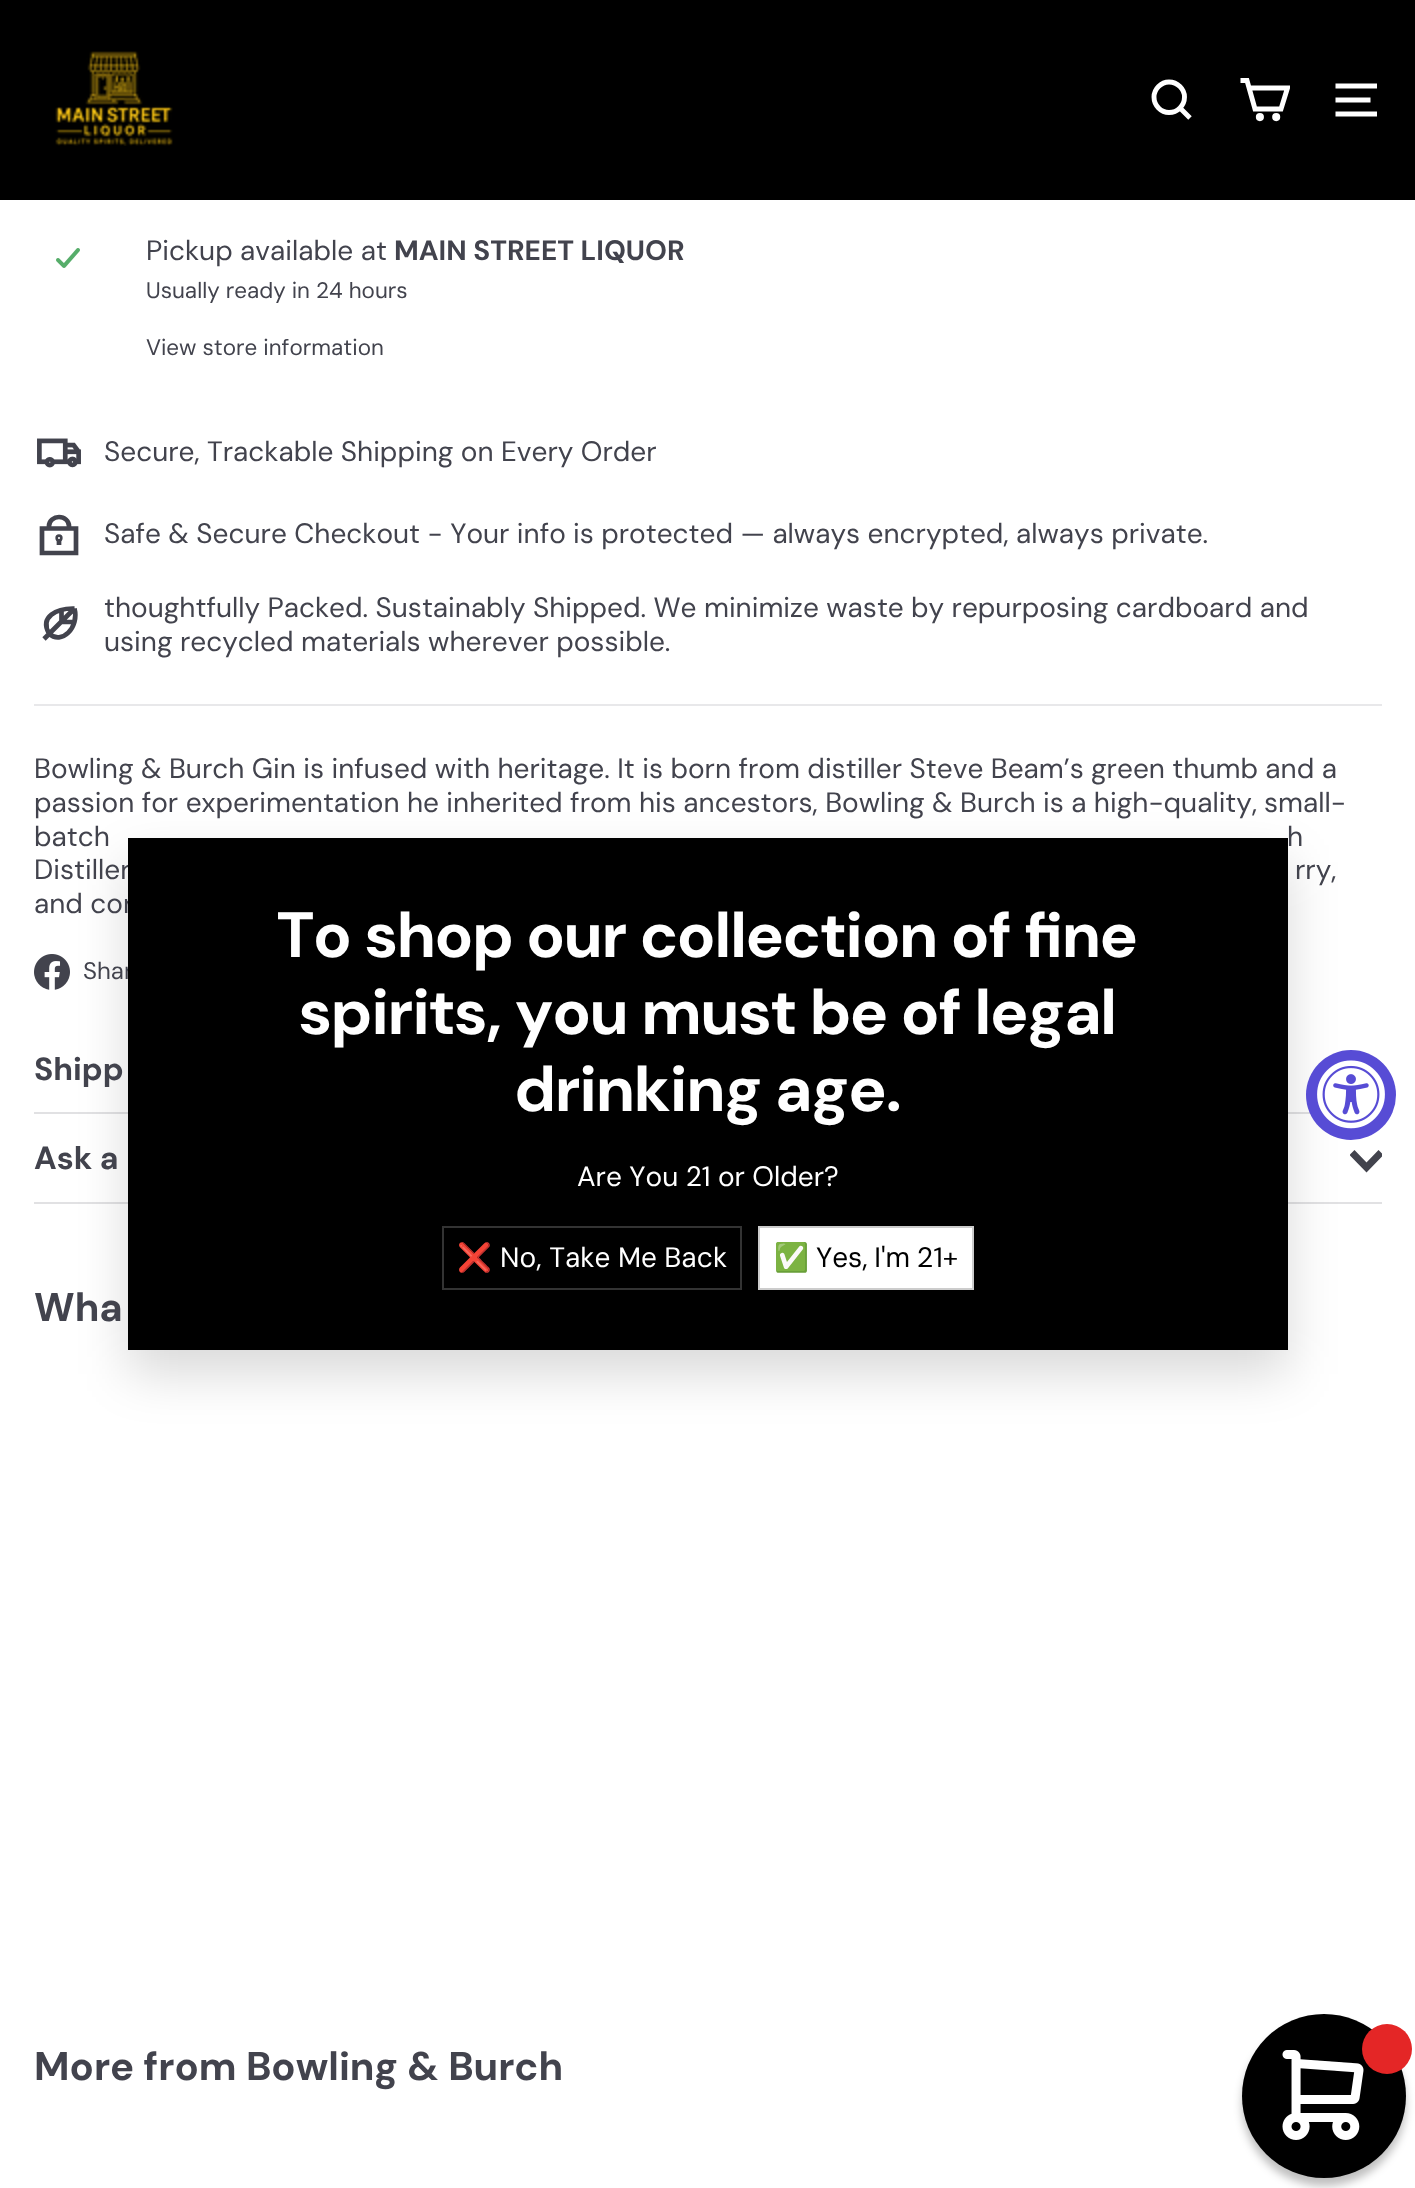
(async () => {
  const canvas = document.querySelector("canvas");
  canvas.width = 1415;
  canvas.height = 2188;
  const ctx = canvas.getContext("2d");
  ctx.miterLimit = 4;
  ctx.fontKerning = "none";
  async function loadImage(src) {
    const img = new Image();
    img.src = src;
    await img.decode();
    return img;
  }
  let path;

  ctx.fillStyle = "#ffffff";
  ctx.fillRect(0, 0, 1415, 2188);
  ctx.fillStyle = "#000000";
  ctx.fillRect(0, 0, 1415, 200);
  ctx.drawImage(await loadImage("img/1.png"), 55, 51, 118, 95);
  path = new Path2D("M1184.5 97C1184.5 105.5 1177.5 112.5 1169 112.5C1161 112.5 1154 105.5 1154 97C1154 89 1161 82 1169 82C1177.5 82 1184.5 89 1184.5 97M1190 118L1180 108");
  ctx.strokeStyle = "#ffffff";
  ctx.lineWidth = 4.9;
  ctx.stroke(path);
  ctx.save();
  ctx.beginPath();
  ctx.rect(1238, 74, 52, 52);
  ctx.clip();
  path = new Path2D("M1249.5 88H1287.5L1281 109H1255L1247 80.5H1240.5");
  ctx.stroke(path);
  ctx.restore();
  ctx.fillStyle = "#ffffff";
  ctx.beginPath();
  ctx.arc(1259.9, 117.1, 1.6, 0, Math.PI * 2);
  ctx.fill();
  ctx.stroke();
  ctx.beginPath();
  ctx.arc(1276.2, 117.1, 1.6, 0, Math.PI * 2);
  ctx.fill();
  ctx.stroke();
  path = new Path2D("M1335.5 86H1377M1335.5 100H1370.5M1335.5 114H1377");
  ctx.stroke(path);
  ctx.drawImage(await loadImage("img/2.png"), 56, 248, 24, 20);
  ctx.drawImage(await loadImage("img/3.png"), 37, 438, 44, 30);
  path = new Path2D("M49 528.5V526C49 520.5 54 517 59 517C64.5 517 69 521 69 526V528.5M42 528.5H76V553H42ZM59 539.5V545");
  ctx.strokeStyle = "#42434d";
  ctx.lineWidth = 4.7;
  ctx.stroke(path);
  ctx.beginPath();
  ctx.arc(59, 538, 1.3, 0, Math.PI * 2);
  ctx.stroke();
  path = new Path2D("M74.5 608.5L44 639M61.5 610V622H74M74.5 608.5C79.5 627.5 61.5 645.5 49 633.5C39.5 617 56.5 608 74.5 608.5");
  ctx.stroke(path);
  ctx.fillStyle = "#e8e8ea";
  ctx.fillRect(34, 704, 1348, 2);
  ctx.drawImage(await loadImage("img/4.png"), 34, 954, 36, 36);
  ctx.fillStyle = "#e1e1e3";
  ctx.fillRect(34, 1112, 1277, 2);
  path = new Path2D("M1352 1062.5L1366.5 1077.5L1381 1062.5");
  ctx.lineWidth = 6.9;
  ctx.stroke(path);
  ctx.fillRect(34, 1202, 1348, 2);
  ctx.save();
  ctx.beginPath();
  ctx.rect(1350, 1144, 32, 32);
  ctx.clip();
  path = new Path2D("M1352 1152.5L1366.5 1167.5L1381 1152.5");
  ctx.stroke(path);
  ctx.restore();
  ctx.fillStyle = "rgba(0, 0, 0, 0.15)";
  ctx.filter = "blur(25px)";
  ctx.beginPath();
  ctx.rect(128, 862, 1160, 512);
  ctx.fill();
  ctx.filter = "none";
  ctx.fillStyle = "#574cd5";
  ctx.beginPath();
  ctx.arc(1351, 1095, 45, 0, Math.PI * 2);
  ctx.fill();
  ctx.drawImage(await loadImage("img/5.png"), 1317, 1060, 68, 69);
  ctx.fillStyle = "rgba(0, 0, 0, 0.25)";
  ctx.filter = "blur(4px)";
  ctx.beginPath();
  ctx.roundRect(1242, 2022, 164, 164, 82);
  ctx.fill();
  ctx.filter = "none";
  ctx.fillStyle = "#000000";
  ctx.beginPath();
  ctx.arc(1324, 2096, 82, 0, Math.PI * 2);
  ctx.fill();
  ctx.fillStyle = "#e42626";
  ctx.beginPath();
  ctx.arc(1387, 2049, 25, 0, Math.PI * 2);
  ctx.fill();
  ctx.drawImage(await loadImage("img/6.png"), 1282, 2050, 82, 90);
  ctx.font = "28px DM Sans";
  ctx.fillStyle = "#42434d";
  ctx.fillText("Pickup available at", 146, 260);
  ctx.font = "bold 28px DM Sans";
  ctx.fillText("MAIN STREET LIQUOR", 394, 260);
  ctx.font = "22.4px 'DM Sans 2'";
  ctx.fillText("Usually ready in 24 hours", 146, 298);
  ctx.fillText("View store information", 146, 355);
  ctx.font = "28px DM Sans";
  for (const [text, x, y] of [
    ["Secure, Trackable Shipping on Every Order", 104, 461],
    ["Safe & Secure Checkout - Your info", 104, 543],
    ["is protected — always encrypted,", 573, 543],
    ["always private.", 1016, 543],
    ["thoughtfully Packed. Sustainably Shipped. We minimize waste", 104, 617],
    ["by repurposing cardboard and", 911, 617],
    ["using recycled materials wherever possible.", 104, 651],
    ["Bowling & Burch Gin is infused with heritage. It is born from distiller Steve Beam’s", 34, 778],
    ["green thumb and a", 1091, 778],
    ["passion for experimentation he inherited from his ancestors, Bowling & Burch is a high-quality,", 34, 812],
    ["small-", 1264, 812],
    ["batch", 34, 846],
    ["h", 1287, 846],
    ["Distiller", 34, 879],
    ["rry,", 1295, 879],
    ["and cor", 34, 913],
  ]) {
    ctx.fillText(text, x, y);
  }
  ctx.font = "24px 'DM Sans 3'";
  ctx.fillText("Shar", 83, 979);
  ctx.font = "bold 32px 'DM Sans 2'";
  ctx.fillText("Shipp", 34, 1080);
  ctx.fillText("Ask a", 34, 1169);
  ctx.font = "bold 40px 'DM Sans 3'";
  ctx.fillText("Wha", 34, 1321);
  ctx.fillText("More from Bowling & Burch", 34, 2080);
  ctx.fillStyle = "#000000";
  ctx.fillRect(128, 838, 1160, 512);
  ctx.font = "bold 64px 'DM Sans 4'";
  ctx.fillStyle = "#ffffff";
  for (const [text, x, y] of [
    ["To shop our collection of fine", 277, 957],
    ["spirits, you must be of legal", 299, 1034],
    ["drinking age.", 515, 1111],
  ]) {
    ctx.fillText(text, x, y);
  }
  ctx.font = "28px DM Sans";
  ctx.fillText("Are You 21 or Older?", 577, 1186);
  ctx.strokeStyle = "#333333";
  ctx.lineWidth = 2;
  ctx.strokeRect(443, 1227, 298, 62);
  ctx.font = "28px Noto Color Emoji";
  ctx.fillText("❌", 457, 1267);
  ctx.font = "28px 'DM Sans 4'";
  ctx.fillText("No, Take Me Back", 500, 1267);
  ctx.beginPath();
  ctx.rect(759, 1227, 214, 62);
  ctx.fill();
  ctx.strokeStyle = "#cccccc";
  ctx.stroke();
  ctx.font = "28px Noto Color Emoji";
  ctx.fillStyle = "#000000";
  ctx.fillText("✅", 774, 1267);
  ctx.wordSpacing = "-1px";
  ctx.font = "28px 'DM Sans 4'";
  ctx.fillText("Yes, I'm 21+", 816, 1267);
})();
